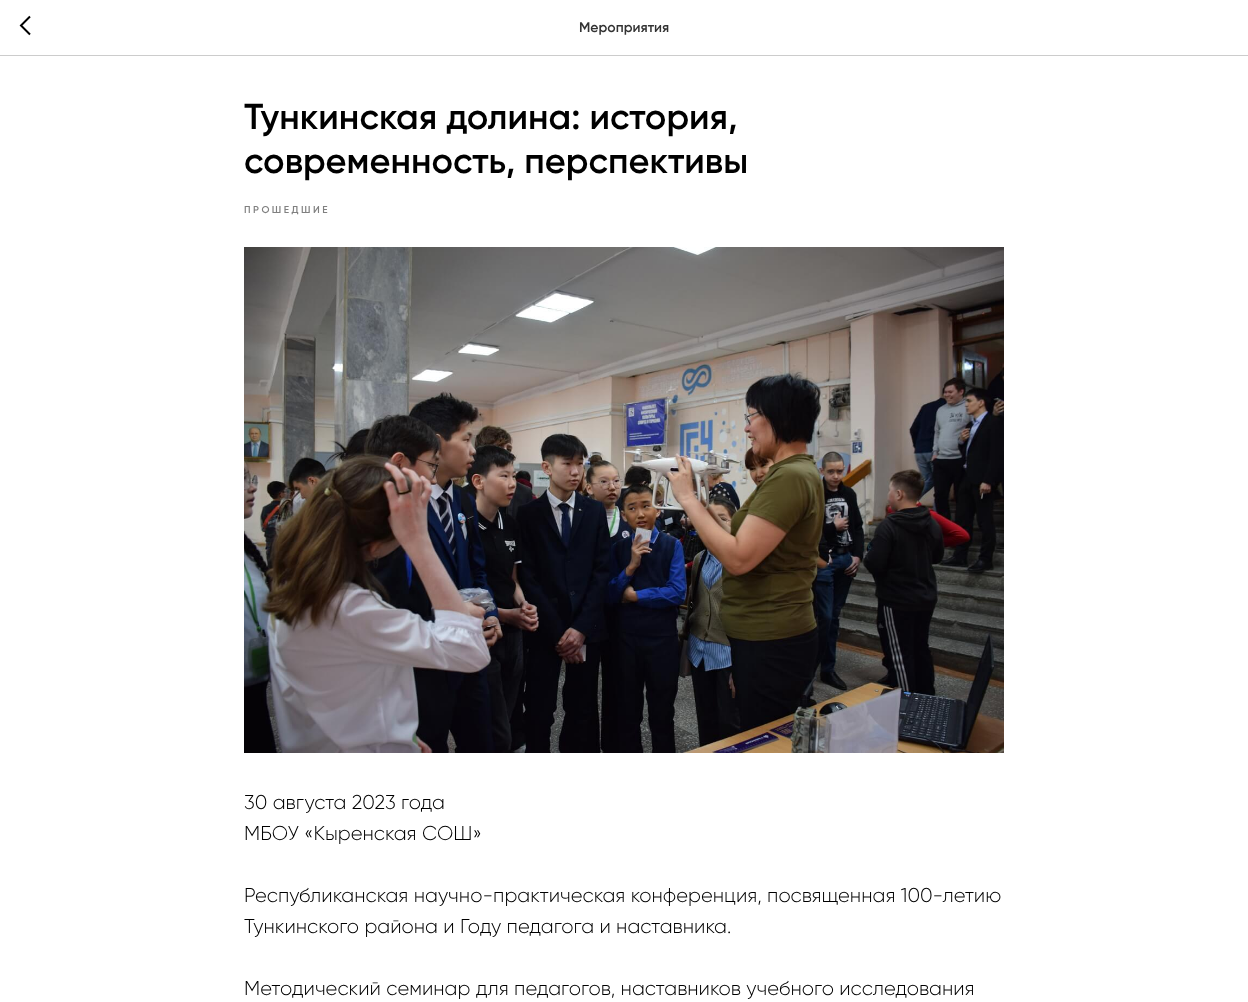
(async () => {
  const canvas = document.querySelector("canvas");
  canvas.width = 1248;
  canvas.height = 1002;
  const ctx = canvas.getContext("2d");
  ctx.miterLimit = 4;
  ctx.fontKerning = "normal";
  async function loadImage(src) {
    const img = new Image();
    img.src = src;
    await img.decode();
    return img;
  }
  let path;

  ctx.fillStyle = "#ffffff";
  ctx.fillRect(0, 0, 1248, 1002);
  ctx.fillStyle = "#cccccc";
  ctx.fillRect(0, 55, 1248, 1);
  path = new Path2D("M30 34.5L21 25.5L30 16.5");
  ctx.strokeStyle = "#000000";
  ctx.lineWidth = 2;
  ctx.stroke(path);
  ctx.drawImage(await loadImage("img/1.png"), 244, 247, 760, 506);
  ctx.font = "600 14px Gilroy";
  ctx.fillStyle = "#333333";
  ctx.fillText("Мероприятия", 579, 32);
  ctx.font = "600 36px Gilroy";
  ctx.fillStyle = "#000000";
  ctx.fillText("Тункинская долина: история,", 244, 129);
  ctx.fillText("современность, перспективы", 244, 173);
  ctx.letterSpacing = "2.5px";
  ctx.font = "600 10px Gilroy";
  ctx.fillStyle = "#808080";
  ctx.fillText("ПРОШЕДШИЕ", 244, 213);
  ctx.letterSpacing = "0px";
  ctx.font = "300 20px Gilroy";
  ctx.fillStyle = "#000000";
  for (const [text, x, y] of [
    ["30 августа 2023 года", 244, 809],
    ["МБОУ «Кыренская СОШ»", 244, 840],
    ["Республиканская научно-практическая конференция, посвященная 100-летию", 244, 902],
    ["Тункинского района и Году педагога и наставника.", 244, 933],
    ["Методический семинар для педагогов, наставников учебного исследования", 244, 995],
  ]) {
    ctx.fillText(text, x, y);
  }
})();
